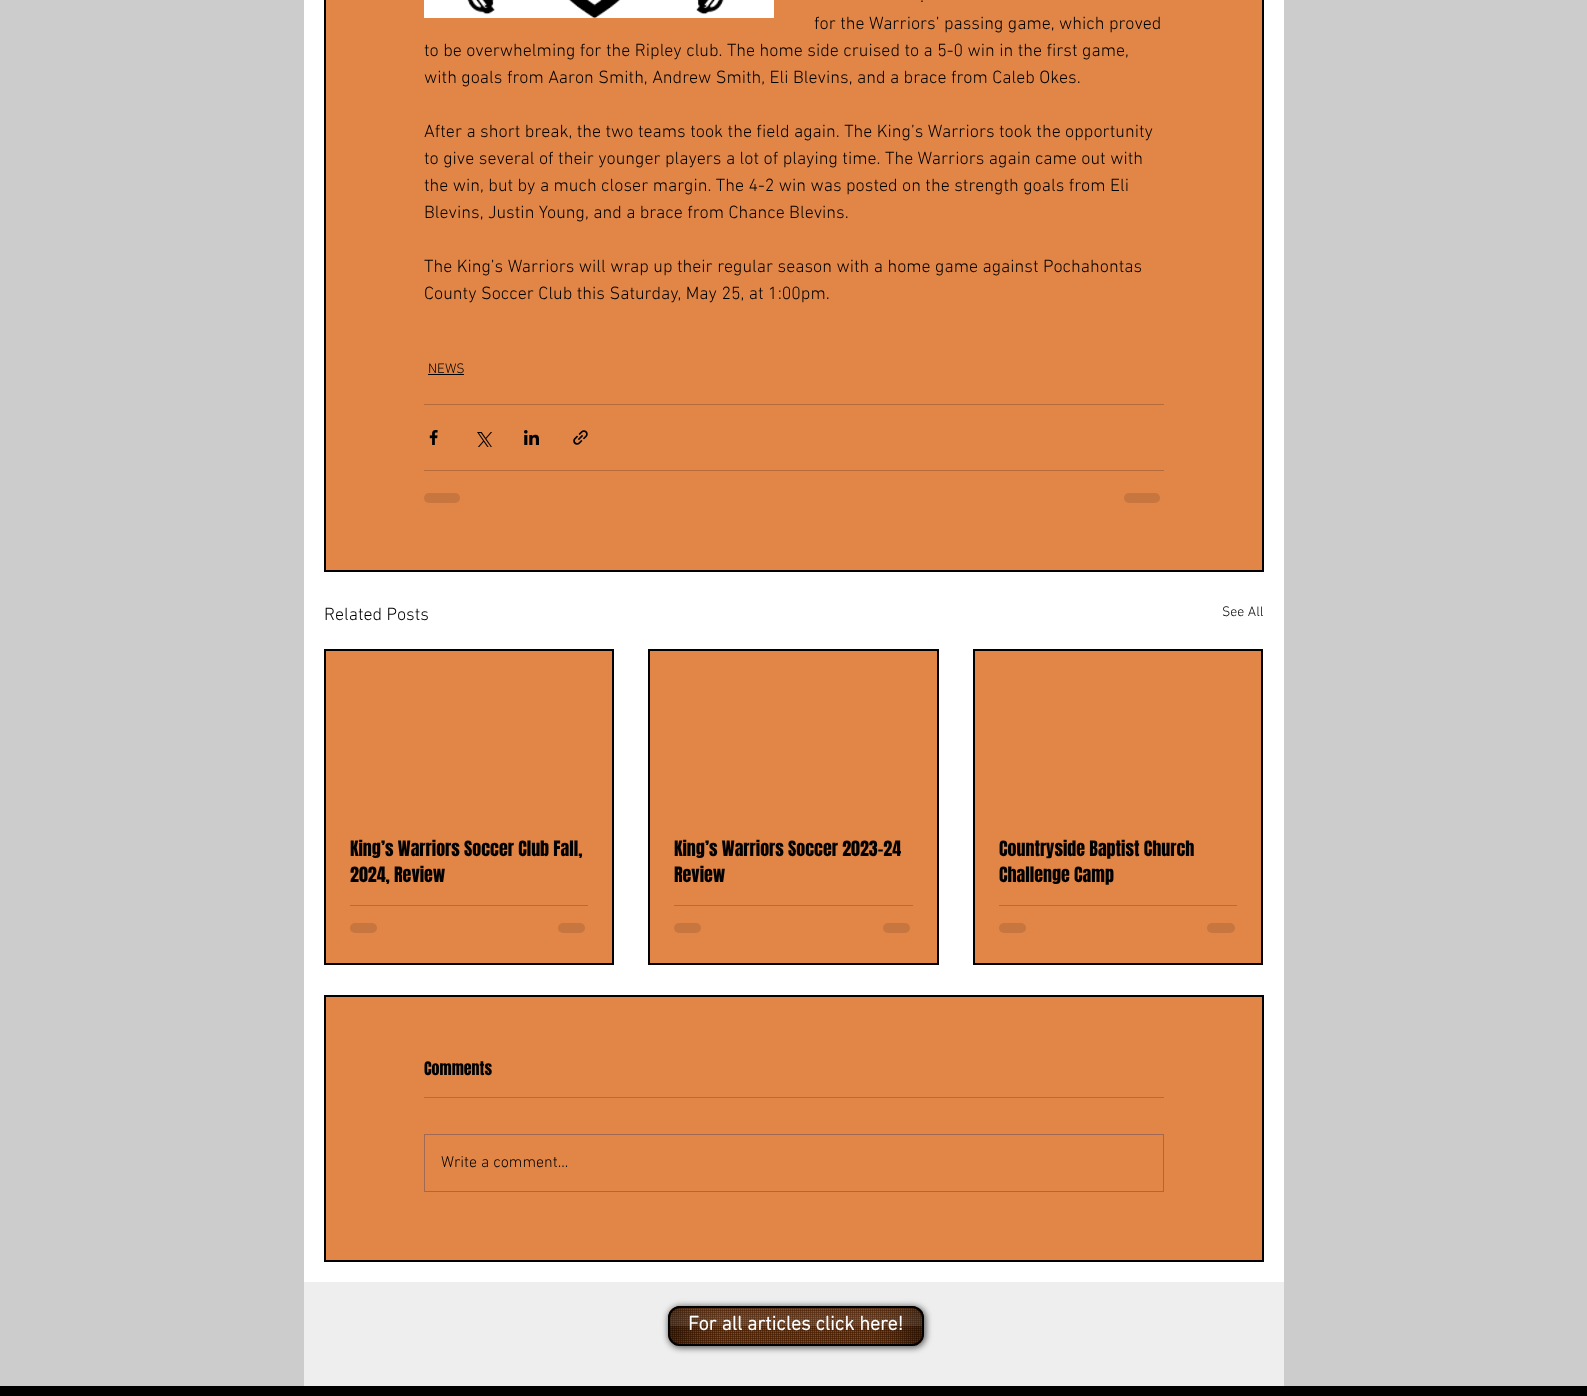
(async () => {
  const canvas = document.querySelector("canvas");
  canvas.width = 1587;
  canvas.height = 1396;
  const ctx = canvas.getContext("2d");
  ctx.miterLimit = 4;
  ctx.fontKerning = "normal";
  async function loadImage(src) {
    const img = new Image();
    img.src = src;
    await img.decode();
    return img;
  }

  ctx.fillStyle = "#cccccc";
  ctx.fillRect(0, 0, 1587, 1396);
  ctx.fillStyle = "#ffffff";
  ctx.fillRect(304, 0, 980, 1282);
  ctx.fillStyle = "#e28648";
  ctx.beginPath();
  ctx.rect(325, -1, 938, 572);
  ctx.fill();
  ctx.strokeStyle = "#000000";
  ctx.lineWidth = 2;
  ctx.stroke();
  ctx.drawImage(await loadImage("img/1.png"), 424, 0, 350, 18);
  ctx.fillStyle = "#000000";
  ctx.fillRect(428, 374, 36, 1);
  ctx.fillStyle = "#b56b3a";
  ctx.fillRect(424, 404, 740, 1);
  ctx.drawImage(await loadImage("img/2.png"), 429, 430, 9, 15);
  ctx.drawImage(await loadImage("img/3.png"), 477, 432, 15, 15);
  ctx.drawImage(await loadImage("img/4.png"), 524, 430, 15, 15);
  ctx.drawImage(await loadImage("img/5.png"), 573, 430, 15, 15);
  ctx.fillRect(424, 470, 740, 1);
  ctx.fillStyle = "#c7763f";
  ctx.beginPath();
  ctx.roundRect(424, 493, 36, 10, 5);
  ctx.fill();
  ctx.beginPath();
  ctx.roundRect(1124, 493, 36, 10, 5);
  ctx.fill();
  ctx.fillStyle = "#e28648";
  ctx.beginPath();
  ctx.rect(325, 650, 288, 314);
  ctx.fill();
  ctx.stroke();
  ctx.fillStyle = "#b56b3a";
  ctx.fillRect(350, 905, 238, 1);
  ctx.fillStyle = "#c7763f";
  ctx.beginPath();
  ctx.roundRect(350, 923, 27, 10, 5);
  ctx.fill();
  ctx.beginPath();
  ctx.roundRect(558, 923, 27, 10, 5);
  ctx.fill();
  ctx.fillStyle = "#e28648";
  ctx.beginPath();
  ctx.rect(649, 650, 289, 314);
  ctx.fill();
  ctx.stroke();
  ctx.fillStyle = "#b56b3a";
  ctx.fillRect(674, 905, 239, 1);
  ctx.fillStyle = "#c7763f";
  ctx.beginPath();
  ctx.roundRect(674, 923, 27, 10, 5);
  ctx.fill();
  ctx.beginPath();
  ctx.roundRect(883, 923, 27, 10, 5);
  ctx.fill();
  ctx.fillStyle = "#e28648";
  ctx.beginPath();
  ctx.rect(974, 650, 288, 314);
  ctx.fill();
  ctx.stroke();
  ctx.fillStyle = "#b56b3a";
  ctx.fillRect(999, 905, 238, 1);
  ctx.fillStyle = "#c7763f";
  ctx.beginPath();
  ctx.roundRect(999, 923, 27, 10, 5);
  ctx.fill();
  ctx.beginPath();
  ctx.roundRect(1207, 923, 28, 10, 5);
  ctx.fill();
  ctx.fillStyle = "#e28648";
  ctx.beginPath();
  ctx.rect(325, 996, 938, 265);
  ctx.fill();
  ctx.stroke();
  ctx.fillStyle = "#b56b3a";
  ctx.fillRect(424, 1097, 740, 1);
  ctx.strokeStyle = "#a06855";
  ctx.lineWidth = 1;
  ctx.strokeRect(424.5, 1134.5, 739, 57);
  ctx.fillStyle = "#eeeeee";
  ctx.fillRect(304, 1282, 980, 104);
  ctx.fillStyle = "rgba(0, 0, 0, 0.6)";
  ctx.filter = "blur(3px)";
  ctx.beginPath();
  ctx.roundRect(668, 1306, 258, 42, 13);
  ctx.fill();
  ctx.filter = "none";
  ctx.fillStyle = "#994106";
  ctx.beginPath();
  ctx.roundRect(668, 1306, 256, 40, 12);
  ctx.fill();
  ctx.drawImage(await loadImage("img/6.png"), 668, 1306, 256, 40);
  ctx.beginPath();
  ctx.roundRect(669, 1307, 254, 38, 11);
  ctx.strokeStyle = "#000000";
  ctx.lineWidth = 2;
  ctx.stroke();
  ctx.drawImage(await loadImage("img/7.png"), 670, 1308, 46, 36);
  ctx.drawImage(await loadImage("img/9.png"), 875, 1308, 47, 36);
  ctx.fillStyle = "#000000";
  ctx.fillRect(0, 1386, 1587, 10);
  ctx.font = "300 18px 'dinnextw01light'";
  for (const [text, x, y] of [
    [".", 920, 2],
    ["for the Warriors’ passing game, which proved", 814, 29],
    ["to be overwhelming for the Ripley club. The home side cruised to a 5-0 win in the first game,", 424, 56],
    ["with goals from Aaron Smith, Andrew Smith, Eli Blevins, and a brace from Caleb Okes.", 424, 83],
    ["After a short break, the two teams took the field again. The King’s Warriors took the opportunity", 424, 137],
    ["to give several of their younger players a lot of playing time. The Warriors again came out with", 424, 164],
    ["the win, but by a much closer margin. The 4-2 win was posted on the strength goals from Eli", 424, 191],
    ["Blevins, Justin Young, and a brace from Chance Blevins.", 424, 218],
    ["The King’s Warriors will wrap up their regular season with a home game against Pochahontas", 424, 272],
    ["County Soccer Club this Saturday, May 25, at 1:00pm.", 424, 299],
  ]) {
    ctx.fillText(text, x, y);
  }
  ctx.font = "300 14px 'dinnextw01light'";
  ctx.fillText("NEWS", 428, 373);
  ctx.font = "300 18px 'dinnextw01light'";
  ctx.fillText("Related Posts", 324, 620);
  ctx.font = "300 14px 'dinnextw01light'";
  ctx.fillText("See All", 1222, 616);
  ctx.font = "18px Anton";
  for (const [text, x, y] of [
    ["King’s Warriors Soccer Club Fall,", 350, 856],
    ["2024, Review", 350, 882],
    ["King’s Warriors Soccer 2023-24", 674, 856],
    ["Review", 674, 882],
    ["Countryside Baptist Church", 999, 856],
    ["Challenge Camp", 999, 882],
  ]) {
    ctx.fillText(text, x, y);
  }
  ctx.font = "16px Anton";
  ctx.fillText("Comments", 424, 1075);
  ctx.font = "300 16px 'dinnextw01light'";
  ctx.fillText("Write a comment...", 441, 1167);
  ctx.font = "bold 20px 'dinnextw01light'";
  ctx.fillStyle = "#ffffff";
  ctx.fillText("For all articles click here!", 688, 1330);
  ctx.drawImage(await loadImage("img/8.png"), 670, 1308, 252, 18);
})();
